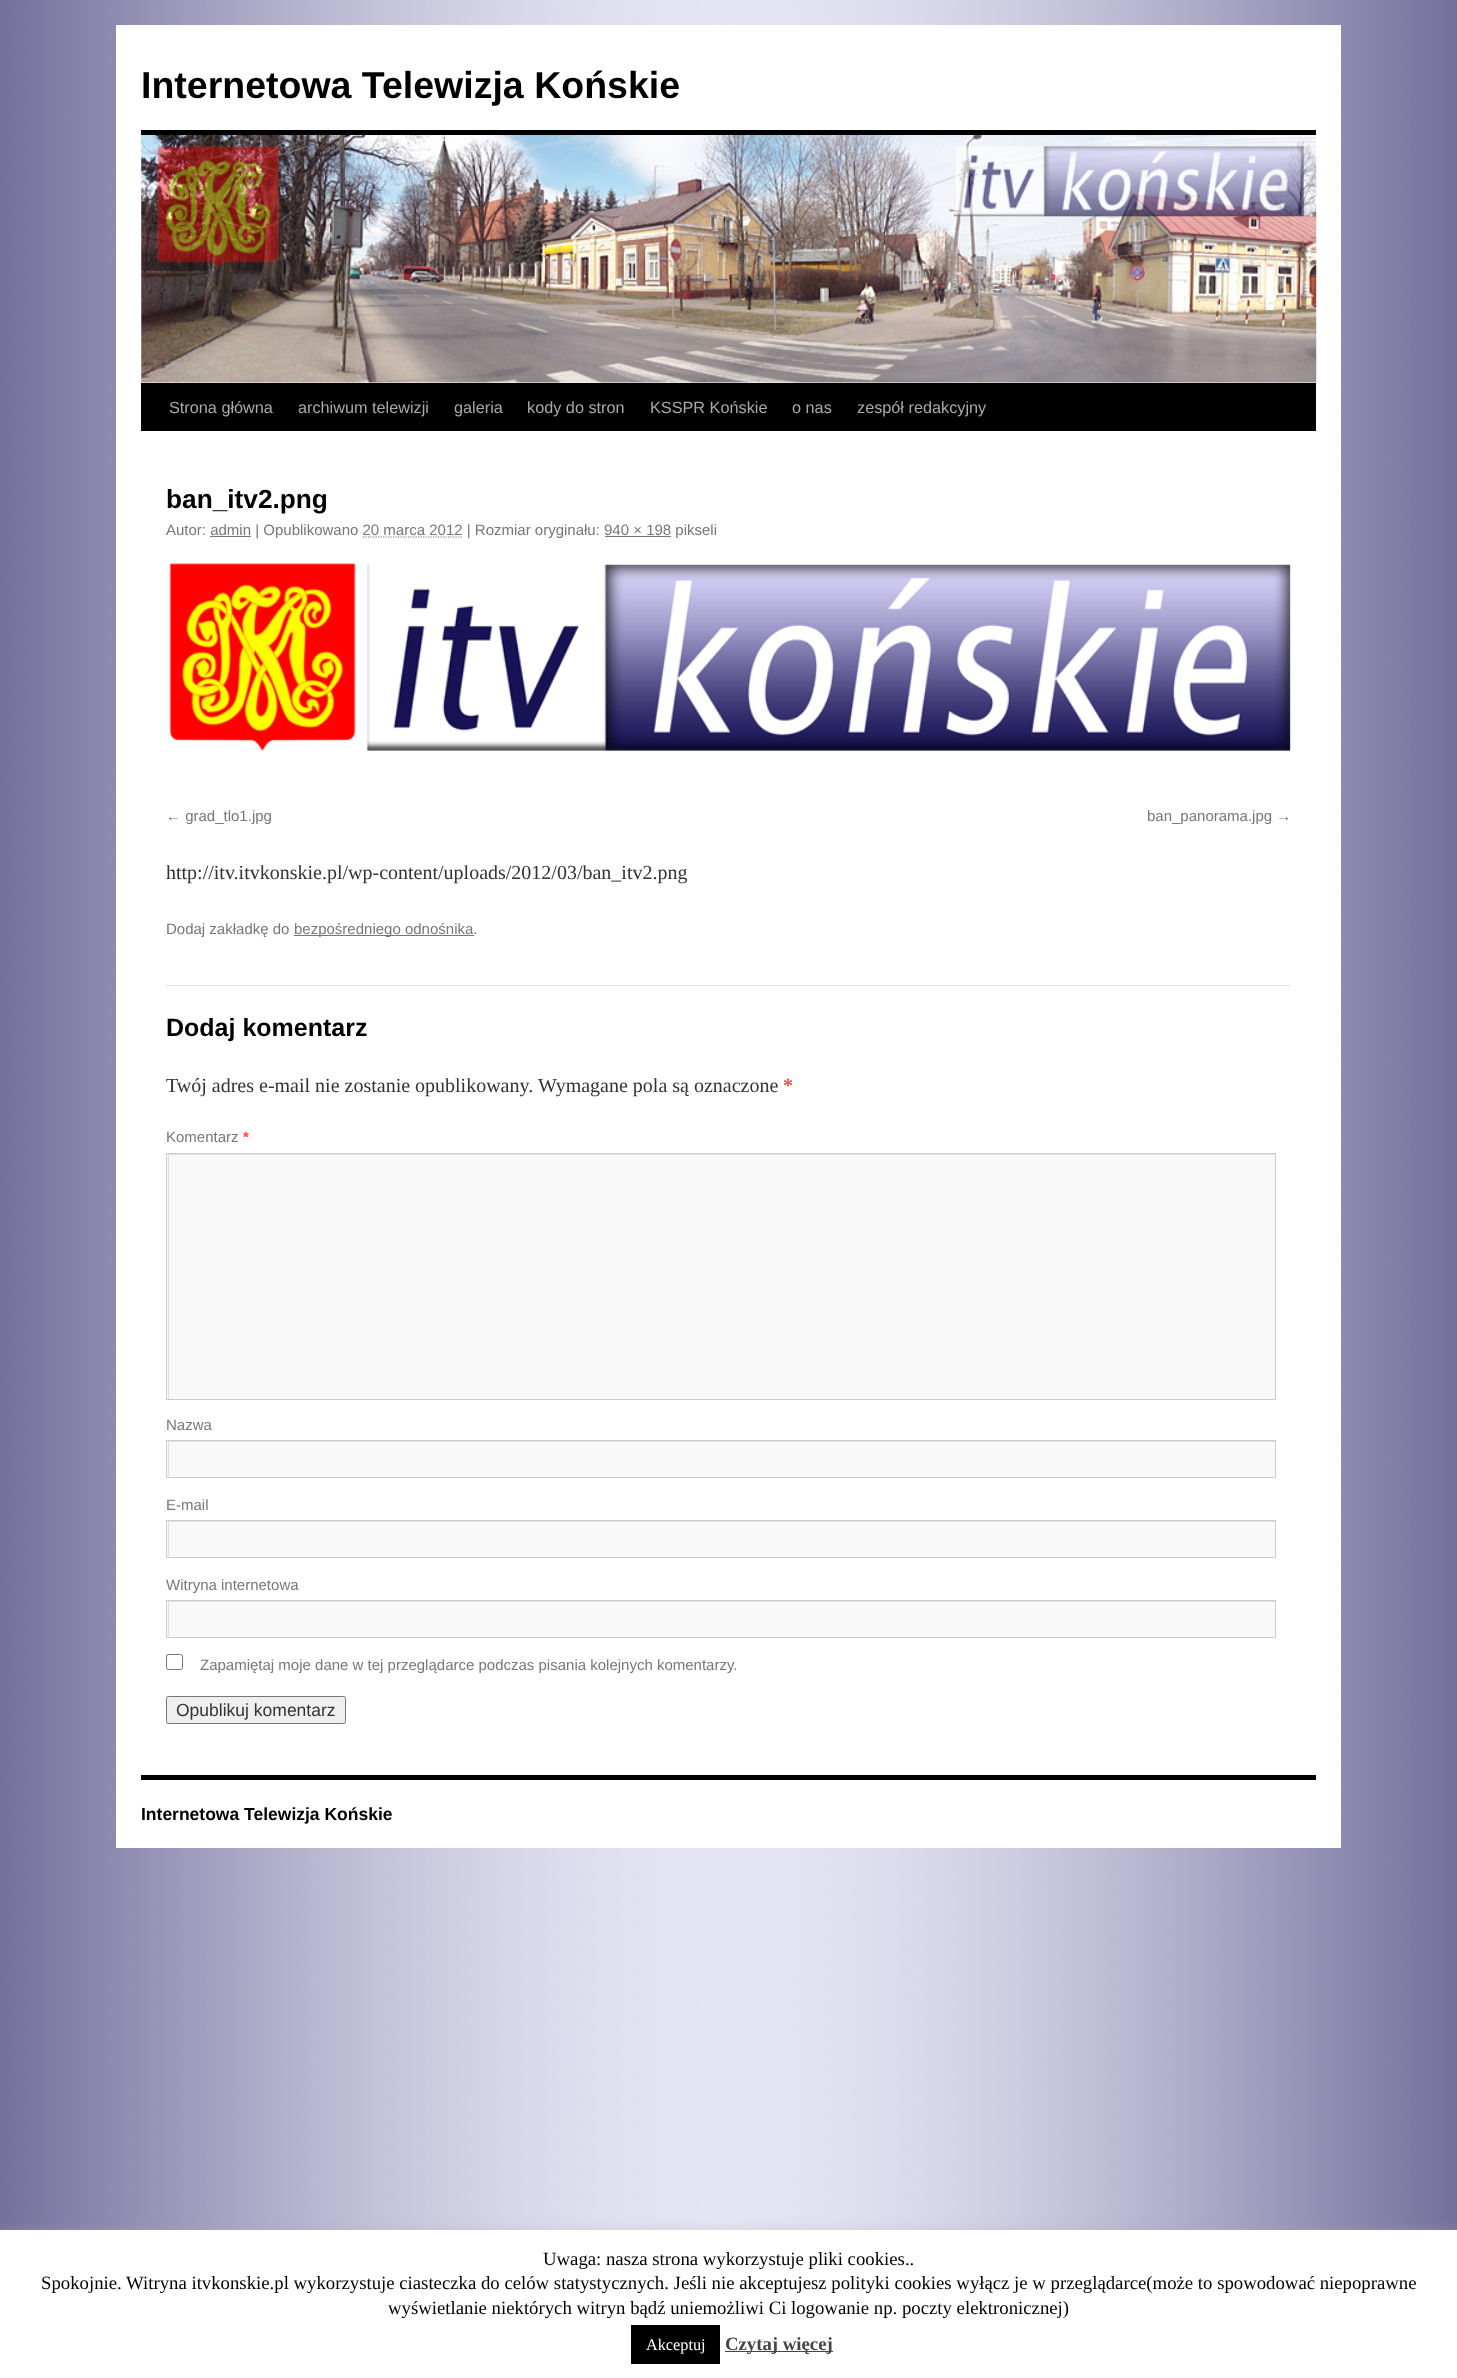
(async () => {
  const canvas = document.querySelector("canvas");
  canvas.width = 1457;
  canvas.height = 2378;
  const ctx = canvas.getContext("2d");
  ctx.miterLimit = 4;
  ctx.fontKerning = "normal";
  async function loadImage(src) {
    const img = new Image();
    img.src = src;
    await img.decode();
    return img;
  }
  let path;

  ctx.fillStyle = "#ffffff";
  ctx.fillRect(0, 0, 1457, 2378);
  ctx.drawImage(await loadImage("img/1.png"), 0, 0, 1457, 2230);
  for (const [x, y, w, h, color] of [
    [116, 25, 1225, 1823, "#ffffff"],
    [141, 130, 1175, 5, "#000000"],
    [141, 383, 1175, 48, "#000000"],
  ]) {
    ctx.fillStyle = color;
    ctx.fillRect(x, y, w, h);
  }
  ctx.drawImage(await loadImage("img/2.png"), 141, 135, 1176, 248);
  ctx.fillStyle = "#777777";
  ctx.fillRect(210, 536, 41, 1);
  path = new Path2D("M363 537H463");
  ctx.strokeStyle = "#777777";
  ctx.lineWidth = 1.2;
  ctx.setLineDash([1.25, 1.25]);
  ctx.stroke(path);
  ctx.fillRect(605, 536, 66, 1);
  ctx.drawImage(await loadImage("img/3.png"), 169, 563, 1122, 188);
  for (const [x, y, w, h, color] of [
    [294, 935, 180, 1, "#777777"],
    [166, 985, 1125, 1, "#e7e7e7"],
    [167, 1154, 1108, 245, "#f9f9f9"],
  ]) {
    ctx.fillStyle = color;
    ctx.fillRect(x, y, w, h);
  }
  ctx.save();
  ctx.beginPath();
  ctx.rect(168, 1154, 1107, 245);
  ctx.clip();
  ctx.fillStyle = "#e0e0e0";
  path = new Path2D("M44 1030H1399V1522H44ZM169 1155H1276V1400H169Z");
  ctx.fill(path, "evenodd");
  ctx.restore();
  ctx.strokeStyle = "#cccccc";
  ctx.lineWidth = 1;
  ctx.setLineDash([]);
  ctx.strokeRect(166.5, 1153.5, 1109, 246);
  ctx.fillRect(167, 1441, 1108, 36);
  ctx.save();
  ctx.beginPath();
  ctx.rect(168, 1441, 1107, 35);
  ctx.clip();
  ctx.fillStyle = "#e0e0e0";
  path = new Path2D("M44 1318H1399V1600H44ZM169 1442H1276V1478H169Z");
  ctx.fill(path, "evenodd");
  ctx.restore();
  ctx.strokeRect(166.5, 1440.5, 1109, 37);
  ctx.fillRect(167, 1521, 1108, 36);
  ctx.save();
  ctx.beginPath();
  ctx.rect(168, 1521, 1107, 35);
  ctx.clip();
  ctx.fillStyle = "#e0e0e0";
  path = new Path2D("M44 1398H1399V1680H44ZM169 1522H1276V1558H169Z");
  ctx.fill(path, "evenodd");
  ctx.restore();
  ctx.strokeRect(166.5, 1520.5, 1109, 37);
  ctx.fillRect(167, 1601, 1108, 36);
  ctx.save();
  ctx.beginPath();
  ctx.rect(168, 1601, 1107, 35);
  ctx.clip();
  ctx.fillStyle = "#e0e0e0";
  path = new Path2D("M44 1478H1399V1760H44ZM169 1602H1276V1638H169Z");
  ctx.fill(path, "evenodd");
  ctx.restore();
  ctx.strokeRect(166.5, 1600.5, 1109, 37);
  ctx.beginPath();
  ctx.roundRect(166.5, 1654.5, 16, 15, 2);
  ctx.strokeStyle = "#767676";
  ctx.stroke();
  ctx.fillStyle = "#efefef";
  ctx.beginPath();
  ctx.roundRect(166.5, 1696.5, 179, 27, 2);
  ctx.fill();
  ctx.stroke();
  ctx.fillStyle = "#000000";
  ctx.fillRect(141, 1775, 1175, 5);
  ctx.fillStyle = "rgba(172, 171, 171, 0.3)";
  ctx.filter = "blur(6px)";
  ctx.beginPath();
  ctx.rect(0, 2229, 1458, 149);
  ctx.fill();
  ctx.filter = "none";
  for (const [x, y, w, h, color] of [
    [0, 2230, 1457, 148, "#ffffff"],
    [631, 2325, 89, 39, "#000000"],
    [725, 2351, 108, 1, "#444444"],
  ]) {
    ctx.fillStyle = color;
    ctx.fillRect(x, y, w, h);
  }
  ctx.font = "bold 37.5px Liberation Sans";
  ctx.fillStyle = "#000000";
  ctx.fillText("Internetowa Telewizja Końskie", 141, 98);
  ctx.font = "16.25px Liberation Sans";
  ctx.fillStyle = "#aaaaaa";
  for (const [text, x, y] of [
    ["Strona główna", 169, 413],
    ["archiwum telewizji", 298, 413],
    ["galeria", 454, 413],
    ["kody do stron", 527, 413],
    ["KSSPR Końskie", 650, 413],
    ["o nas", 792, 413],
    ["zespół redakcyjny", 857, 413],
  ]) {
    ctx.fillText(text, x, y);
  }
  ctx.font = "bold 26.25px Liberation Sans";
  ctx.fillStyle = "#000000";
  ctx.fillText("ban_itv2.png", 166, 508);
  ctx.font = "15px Liberation Sans";
  ctx.fillStyle = "#777777";
  for (const [text, x, y] of [
    ["Autor: admin | Opublikowano 20 marca 2012 | Rozmiar oryginału: 940 × 198 pikseli", 166, 535],
    ["← grad_tlo1.jpg", 166, 821],
    ["ban_panorama.jpg →", 1147, 821],
  ]) {
    ctx.fillText(text, x, y);
  }
  ctx.font = "20px Liberation Serif";
  ctx.fillStyle = "#333333";
  ctx.fillText("http://itv.itvkonskie.pl/wp-content/uploads/2012/03/ban_itv2.png", 166, 879);
  ctx.font = "15px Liberation Sans";
  ctx.fillStyle = "#777777";
  ctx.fillText("Dodaj zakładkę do", 166, 934);
  ctx.fillText("bezpośredniego odnośnika.", 294, 934);
  ctx.font = "bold 25px Liberation Sans";
  ctx.fillStyle = "#000000";
  ctx.fillText("Dodaj komentarz", 166, 1036);
  ctx.font = "20px Liberation Serif";
  ctx.fillStyle = "#333333";
  ctx.fillText("Twój adres e-mail nie zostanie opublikowany.", 166, 1092);
  ctx.fillText("Wymagane pola są oznaczone", 538, 1092);
  ctx.font = "bold 20px Liberation Serif";
  ctx.fillStyle = "#ff4b33";
  ctx.fillText("*", 783, 1092);
  ctx.font = "15px Liberation Sans";
  ctx.fillStyle = "#777777";
  ctx.fillText("Komentarz", 166, 1142);
  ctx.font = "bold 15px Liberation Sans";
  ctx.fillStyle = "#ff4b33";
  ctx.fillText("*", 243, 1142);
  ctx.font = "15px Liberation Sans";
  ctx.fillStyle = "#777777";
  for (const [text, x, y] of [
    ["Nazwa", 166, 1430],
    ["E-mail", 166, 1510],
    ["Witryna internetowa", 166, 1590],
    ["Zapamiętaj moje dane w tej przeglądarce podczas pisania kolejnych komentarzy.", 200, 1670],
  ]) {
    ctx.fillText(text, x, y);
  }
  ctx.font = "17.5px Liberation Sans";
  ctx.fillStyle = "#333333";
  ctx.fillText("Opublikuj komentarz", 176, 1716);
  ctx.font = "bold 17.5px Liberation Sans";
  ctx.fillStyle = "#000000";
  ctx.fillText("Internetowa Telewizja Końskie", 141, 1820);
  ctx.font = "18.75px Liberation Serif";
  for (const [text, x, y] of [
    ["Uwaga: nasza strona wykorzystuje pliki cookies..", 543, 2265],
    ["Spokojnie. Witryna itvkonskie.pl wykorzystuje ciasteczka do celów statystycznych. Jeśli nie akceptujesz polityki cookies wyłącz je w przeglądarce(może to spowodować niepoprawne", 41, 2289],
    ["wyświetlanie niektórych witryn bądź uniemożliwi Ci logowanie np. poczty elektronicznej)", 388, 2314],
  ]) {
    ctx.fillText(text, x, y);
  }
  ctx.font = "16.25px Liberation Serif";
  ctx.fillStyle = "#ffffff";
  ctx.fillText("Akceptuj", 646, 2350);
  ctx.font = "bold 18.75px Liberation Serif";
  ctx.fillStyle = "#444444";
  ctx.fillText("Czytaj więcej", 725, 2350);
})();
